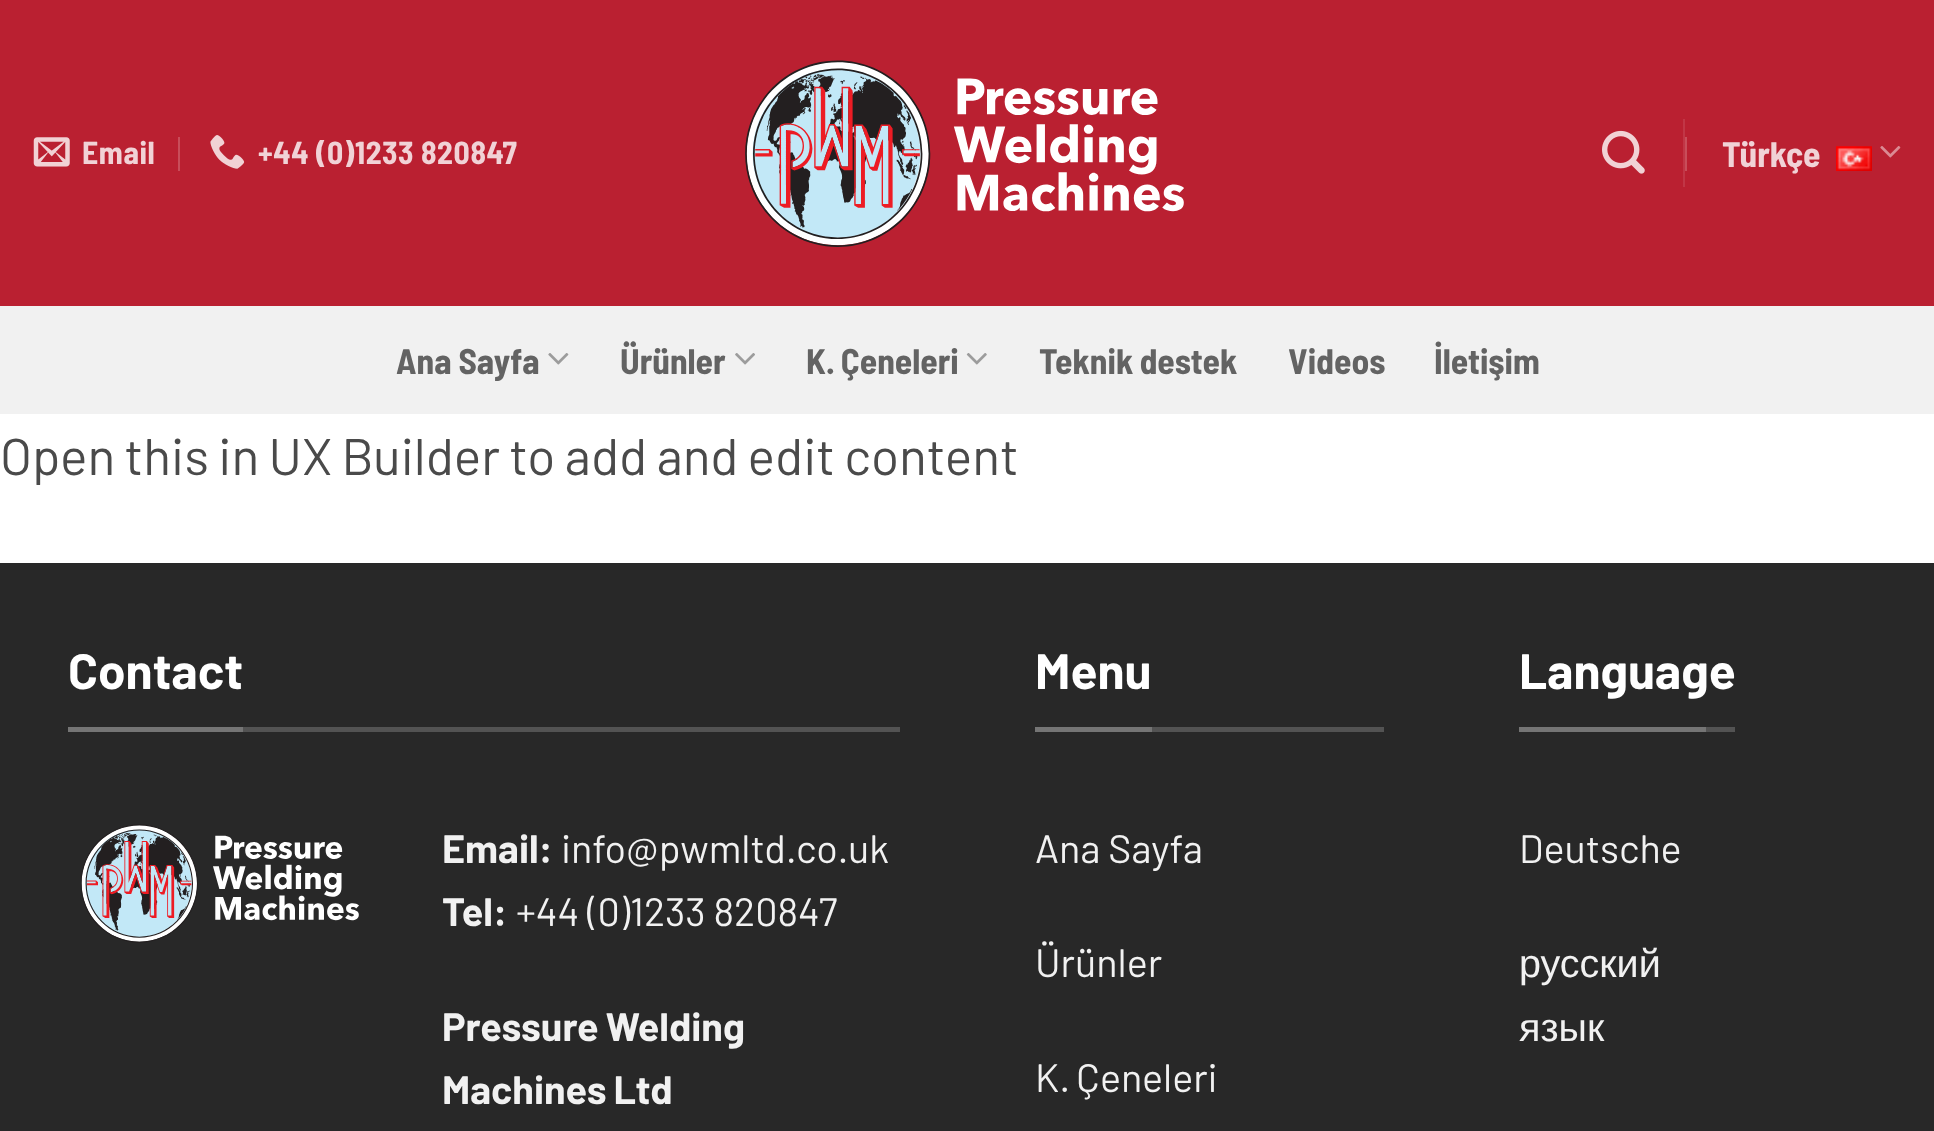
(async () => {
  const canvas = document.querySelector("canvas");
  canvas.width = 1934;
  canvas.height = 1131;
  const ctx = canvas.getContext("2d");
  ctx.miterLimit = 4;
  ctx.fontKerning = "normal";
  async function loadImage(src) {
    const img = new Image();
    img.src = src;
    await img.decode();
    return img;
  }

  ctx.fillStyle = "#ffffff";
  ctx.fillRect(0, 0, 1934, 1131);
  ctx.fillStyle = "#ba2031";
  ctx.fillRect(0, 0, 1934, 306);
  ctx.drawImage(await loadImage("img/1.png"), 33, 137, 37, 30);
  ctx.fillStyle = "#c84d5a";
  ctx.fillRect(178, 137, 2, 34);
  ctx.drawImage(await loadImage("img/2.png"), 210, 135, 35, 34);
  ctx.drawImage(await loadImage("img/3.png"), 745, 60, 439, 187);
  ctx.drawImage(await loadImage("img/4.png"), 1602, 130, 43, 44);
  ctx.fillStyle = "#c13646";
  ctx.fillRect(1683, 119, 2, 68);
  ctx.fillStyle = "#c84d5a";
  ctx.fillRect(1685, 137, 2, 34);
  ctx.drawImage(await loadImage("img/5.png"), 1836, 146, 36, 25);
  ctx.drawImage(await loadImage("img/6.png"), 1880, 146, 21, 12);
  ctx.fillStyle = "#f1f1f1";
  ctx.fillRect(0, 306, 1934, 108);
  ctx.drawImage(await loadImage("img/7.png"), 548, 353, 21, 12);
  ctx.drawImage(await loadImage("img/8.png"), 735, 353, 20, 12);
  ctx.drawImage(await loadImage("img/9.png"), 966, 353, 21, 12);
  for (const [x, y, w, h, color] of [
    [0, 563, 1934, 568, "#282828"],
    [1706, 727, 29, 5, "#535353"],
    [243, 727, 657, 5, "#535353"],
    [68, 727, 175, 5, "#757575"],
  ]) {
    ctx.fillStyle = color;
    ctx.fillRect(x, y, w, h);
  }
  ctx.drawImage(await loadImage("img/10.png"), 81, 824, 278, 119);
  for (const [x, y, w, h, color] of [
    [1152, 727, 232, 5, "#535353"],
    [1035, 727, 117, 5, "#757575"],
    [1519, 727, 187, 5, "#757575"],
  ]) {
    ctx.fillStyle = color;
    ctx.fillRect(x, y, w, h);
  }
  ctx.letterSpacing = "0.6px";
  ctx.font = "bold 31.75px Barlow Semi Condensed";
  ctx.fillStyle = "#f1d2d6";
  ctx.fillText("Email", 82, 164);
  ctx.fillText("+44 (0)1233 820847", 258, 164);
  ctx.letterSpacing = "0px";
  ctx.font = "bold 35.5px Barlow Semi Condensed";
  ctx.fillText("Türkçe", 1722, 167);
  ctx.fillStyle = "#636363";
  ctx.fillText("Ana Sayfa", 396, 374);
  ctx.fillText("Ürünler", 620, 374);
  ctx.wordSpacing = "-1px";
  ctx.fillText("K. Çeneleri", 806, 374);
  ctx.fillText("Teknik destek", 1039, 374);
  ctx.wordSpacing = "0px";
  ctx.fillText("Videos", 1288, 374);
  ctx.fillText("İletişim", 1434, 374);
  ctx.wordSpacing = "-1px";
  ctx.font = "51.5px Barlow";
  ctx.fillStyle = "#4a4a4a";
  ctx.fillText("Open this in UX Builder to add and edit content", 0, 475);
  ctx.wordSpacing = "0px";
  ctx.font = "bold 49.5px Barlow";
  ctx.fillStyle = "#ffffff";
  ctx.fillText("Contact", 68, 689);
  ctx.font = "bold 39.5px Barlow";
  ctx.fillStyle = "#f1f1f1";
  ctx.fillText("Email:", 442, 863);
  ctx.font = "39.5px Barlow";
  ctx.fillText("info@pwmltd.co.uk", 561, 863);
  ctx.font = "bold 39.5px Barlow";
  ctx.fillText("Tel:", 442, 926);
  ctx.font = "39.5px Barlow";
  ctx.fillText("+44 (0)1233 820847", 516, 926);
  ctx.wordSpacing = "-1px";
  ctx.font = "bold 39.5px Barlow";
  ctx.fillText("Pressure Welding", 442, 1041);
  ctx.fillText("Machines Ltd", 442, 1104);
  ctx.wordSpacing = "0px";
  ctx.font = "bold 49.5px Barlow";
  ctx.fillStyle = "#ffffff";
  ctx.fillText("Menu", 1035, 689);
  ctx.font = "39.5px Barlow";
  ctx.fillStyle = "#f1f1f1";
  ctx.fillText("Ana Sayfa", 1035, 863);
  ctx.fillText("Ürünler", 1035, 977);
  ctx.wordSpacing = "-2px";
  ctx.fillText("K. Çeneleri", 1035, 1092);
  ctx.wordSpacing = "0px";
  ctx.font = "bold 49.5px Barlow";
  ctx.fillStyle = "#ffffff";
  ctx.fillText("Language", 1519, 689);
  ctx.font = "39.5px Barlow";
  ctx.fillStyle = "#f1f1f1";
  ctx.fillText("Deutsche", 1519, 863);
  ctx.font = "39.5px Liberation Sans";
  ctx.fillText("русский", 1519, 977);
  ctx.fillText("язык", 1519, 1041);
})();
